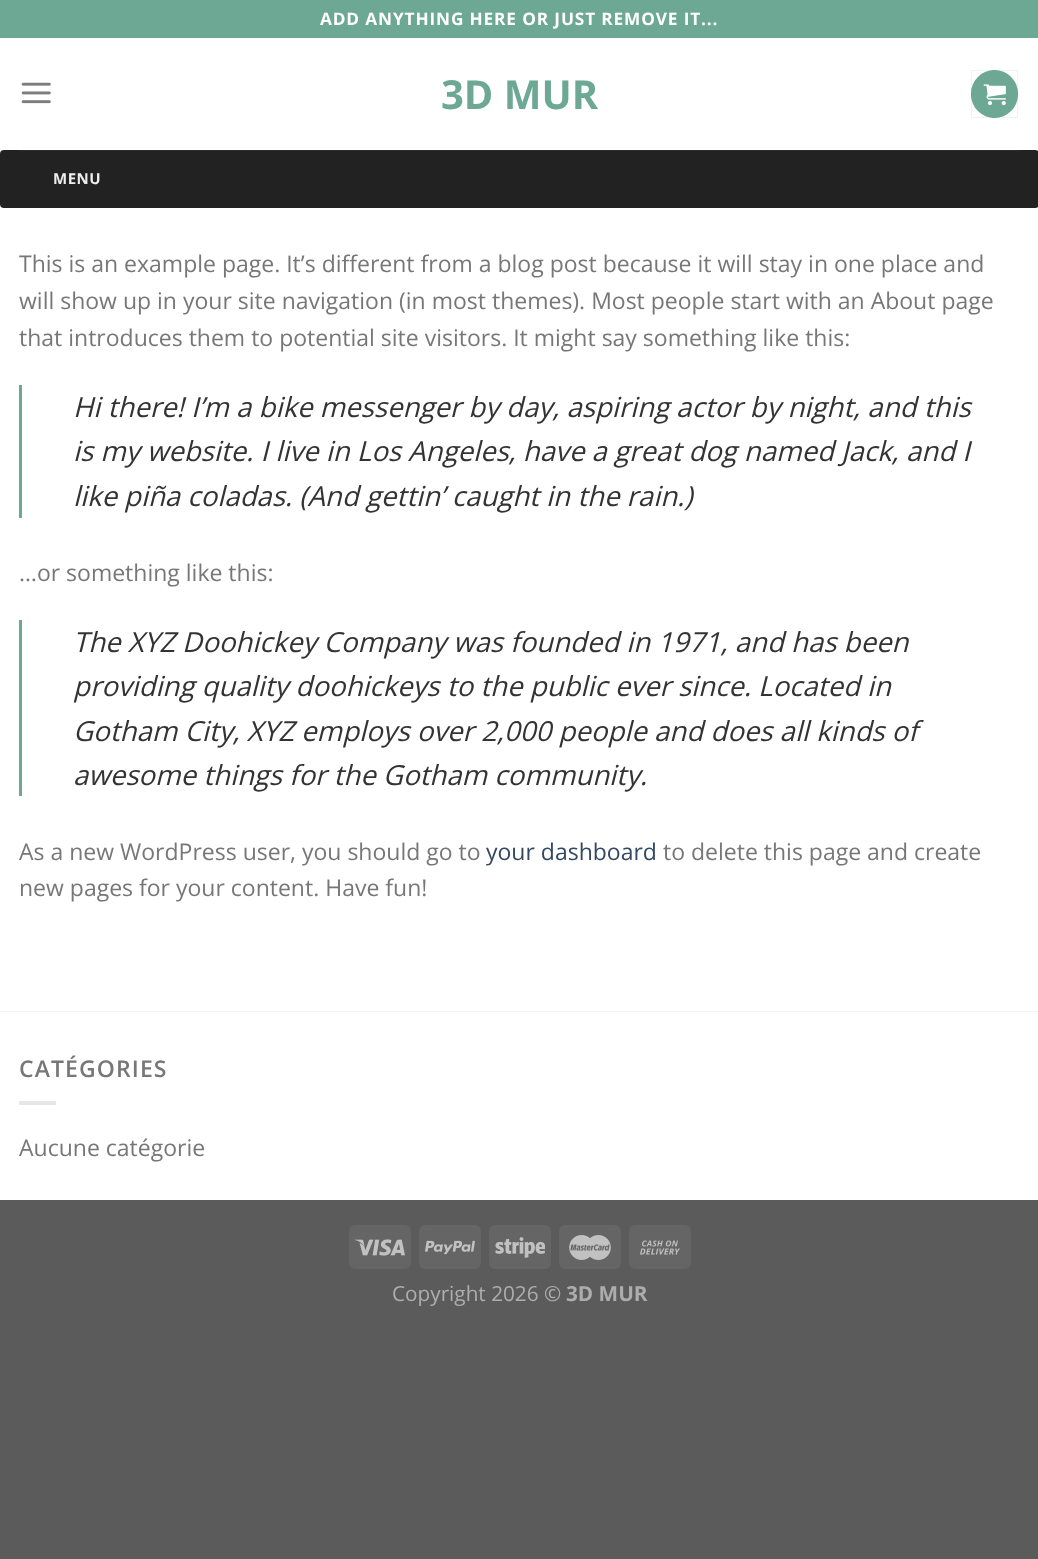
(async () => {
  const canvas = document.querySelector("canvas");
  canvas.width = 1038;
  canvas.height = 1559;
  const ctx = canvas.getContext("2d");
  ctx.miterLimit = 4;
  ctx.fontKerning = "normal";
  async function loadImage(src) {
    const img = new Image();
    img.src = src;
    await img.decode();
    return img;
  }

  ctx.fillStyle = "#5b5b5b";
  ctx.fillRect(0, 0, 1038, 1559);
  ctx.fillStyle = "#ffffff";
  ctx.fillRect(0, 38, 1038, 1162);
  ctx.fillStyle = "#6ca893";
  ctx.fillRect(0, 0, 1038, 38);
  ctx.drawImage(await loadImage("img/1.png"), 21, 82, 30, 22);
  ctx.beginPath();
  ctx.roundRect(971, 70, 47, 48, 23.5);
  ctx.fill();
  ctx.strokeStyle = "rgba(0, 0, 0, 0.05)";
  ctx.strokeRect(971.5, 70.5, 46, 47);
  ctx.drawImage(await loadImage("img/2.png"), 983, 84, 23, 22);
  ctx.fillStyle = "#222222";
  ctx.beginPath();
  ctx.roundRect(0, 150, 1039, 58, 4);
  ctx.fill();
  for (const [x, y, w, h, color] of [
    [19, 150, 1001, 1, "#2b2b2b"],
    [19, 385, 3, 133, "#6ca893"],
    [19, 620, 3, 176, "#6ca893"],
    [0, 1011, 1038, 1, "#f2f2f2"],
    [19, 1101, 37, 4, "#e6e6e6"],
  ]) {
    ctx.fillStyle = color;
    ctx.fillRect(x, y, w, h);
  }
  ctx.fillStyle = "#656565";
  ctx.beginPath();
  ctx.roundRect(349, 1225, 62, 44, 6);
  ctx.fill();
  ctx.drawImage(await loadImage("img/3.png"), 355, 1239, 50, 17);
  ctx.beginPath();
  ctx.roundRect(419, 1225, 62, 44, 6);
  ctx.fill();
  ctx.drawImage(await loadImage("img/4.png"), 425, 1240, 50, 15);
  ctx.beginPath();
  ctx.roundRect(489, 1225, 62, 44, 6);
  ctx.fill();
  ctx.drawImage(await loadImage("img/5.png"), 495, 1237, 50, 21);
  ctx.beginPath();
  ctx.roundRect(559, 1225, 62, 44, 6);
  ctx.fill();
  ctx.drawImage(await loadImage("img/6.png"), 569, 1235, 42, 25);
  ctx.beginPath();
  ctx.roundRect(629, 1225, 62, 44, 6);
  ctx.fill();
  ctx.drawImage(await loadImage("img/7.png"), 640, 1240, 40, 15);
  ctx.letterSpacing = "0.85px";
  ctx.font = "bold 17.25px Open Sans";
  ctx.fillStyle = "#ffffff";
  ctx.fillText("ADD ANYTHING HERE OR JUST REMOVE IT...", 320, 25);
  ctx.letterSpacing = "0px";
  ctx.font = "bold 40px Open Sans";
  ctx.fillStyle = "#6ca893";
  ctx.fillText("3D MUR", 441, 109);
  ctx.letterSpacing = "0.5px";
  ctx.font = "bold 15px Open Sans";
  ctx.fillStyle = "#eeeeee";
  ctx.fillText("MENU", 53, 184);
  ctx.letterSpacing = "0px";
  ctx.font = "23px Open Sans";
  ctx.fillStyle = "#777777";
  for (const [text, x, y] of [
    ["This is an example page. It’s different from a blog post because it will stay in one place and", 19, 272],
    ["will show up in your site navigation (in most themes). Most people start with an About page", 19, 309],
    ["that introduces them to potential site visitors. It might say something like this:", 19, 346],
  ]) {
    ctx.fillText(text, x, y);
  }
  ctx.font = "italic 27.6px Open Sans";
  ctx.fillStyle = "#333333";
  for (const [text, x, y] of [
    ["Hi there! I’m a bike messenger by day, aspiring actor by night, and this", 73, 417],
    ["is my website. I live in Los Angeles, have a great dog named Jack, and I", 73, 461],
    ["like piña coladas. (And gettin’ caught in the rain.)", 73, 506],
  ]) {
    ctx.fillText(text, x, y);
  }
  ctx.font = "23px Open Sans";
  ctx.fillStyle = "#777777";
  ctx.fillText("…or something like this:", 19, 581);
  ctx.font = "italic 27.6px Open Sans";
  ctx.fillStyle = "#333333";
  for (const [text, x, y] of [
    ["The XYZ Doohickey Company was founded in 1971, and has been", 73, 652],
    ["providing quality doohickeys to the public ever since. Located in", 73, 696],
    ["Gotham City, XYZ employs over 2,000 people and does all kinds of", 73, 741],
    ["awesome things for the Gotham community.", 73, 785],
  ]) {
    ctx.fillText(text, x, y);
  }
  ctx.font = "23px Open Sans";
  ctx.fillStyle = "#777777";
  ctx.fillText("As a new WordPress user, you should go to", 19, 860);
  ctx.fillStyle = "#334862";
  ctx.fillText("your dashboard", 486, 860);
  ctx.fillStyle = "#777777";
  ctx.fillText("to delete this page and create", 663, 860);
  ctx.fillText("new pages for your content. Have fun!", 19, 896);
  ctx.letterSpacing = "1.1px";
  ctx.font = "600 23px Open Sans";
  ctx.fillText("CATÉGORIES", 19, 1077);
  ctx.letterSpacing = "0px";
  ctx.font = "23px Open Sans";
  ctx.fillText("Aucune catégorie", 19, 1156);
  ctx.font = "20.75px Open Sans";
  ctx.fillStyle = "#adadad";
  ctx.fillText("Copyright 2026 ©", 392, 1301);
  ctx.font = "bold 20.75px Open Sans";
  ctx.fillText("3D MUR", 566, 1301);
})();
